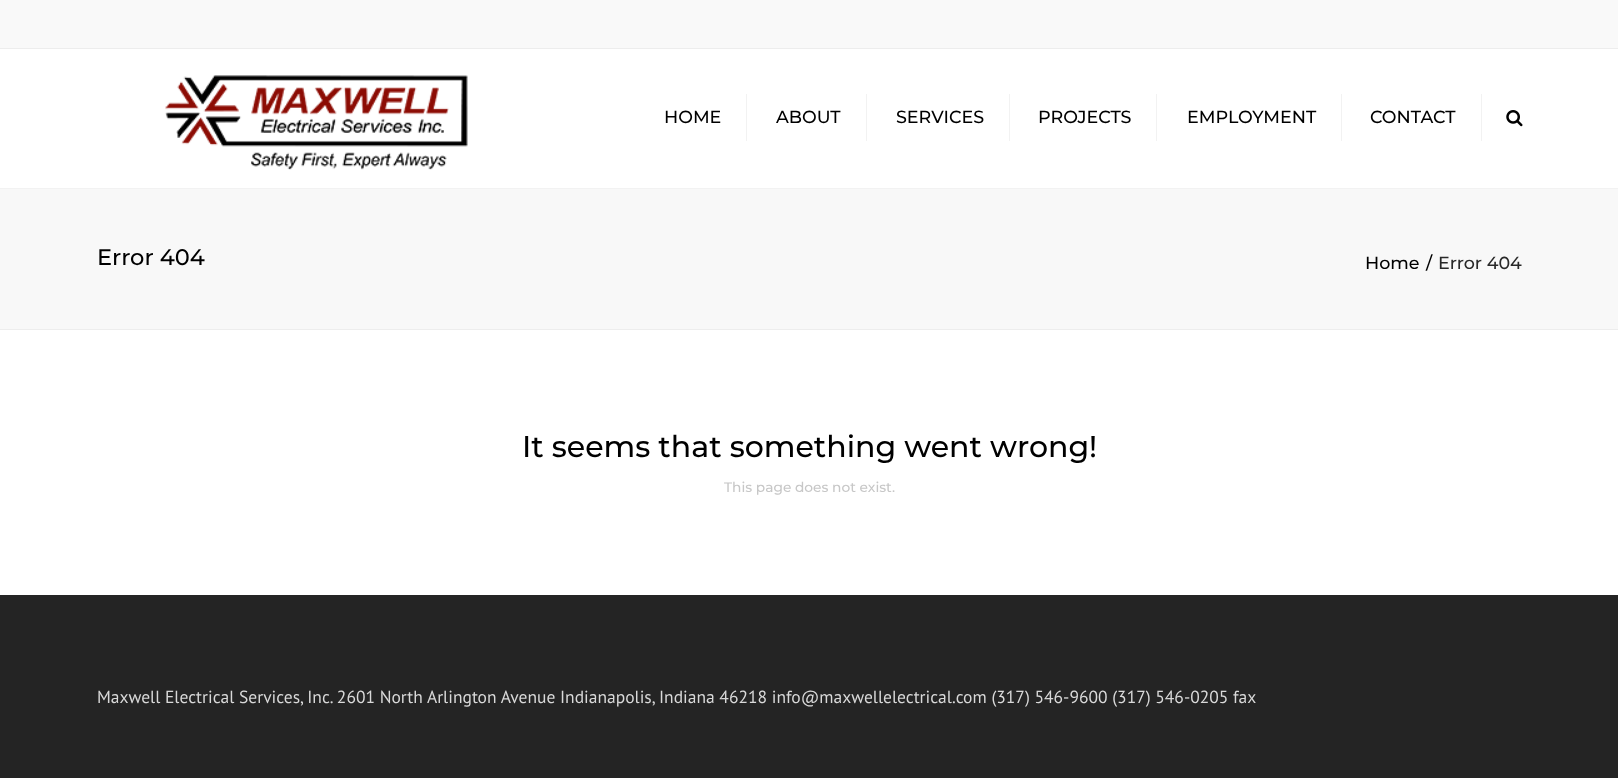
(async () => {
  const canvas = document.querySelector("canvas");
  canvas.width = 1618;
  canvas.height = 778;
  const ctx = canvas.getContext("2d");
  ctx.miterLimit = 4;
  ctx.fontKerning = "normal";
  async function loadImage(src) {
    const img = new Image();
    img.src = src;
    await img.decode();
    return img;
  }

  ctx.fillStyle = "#ffffff";
  ctx.fillRect(0, 0, 1618, 778);
  for (const [x, y, w, h, color] of [
    [0, 0, 1618, 48, "#f9f9f9"],
    [0, 48, 1618, 1, "#ededed"],
    [0, 188, 1618, 1, "#f2f2f2"],
  ]) {
    ctx.fillStyle = color;
    ctx.fillRect(x, y, w, h);
  }
  ctx.drawImage(await loadImage("img/1.png"), 165, 75, 303, 95);
  for (const [x, y, w, h, color] of [
    [746, 94, 1, 47, "#f2f2f2"],
    [866, 94, 1, 47, "#f2f2f2"],
    [1009, 94, 1, 47, "#f2f2f2"],
    [1156, 94, 1, 47, "#f2f2f2"],
    [1341, 94, 1, 47, "#f2f2f2"],
    [1481, 94, 1, 47, "#f2f2f2"],
  ]) {
    ctx.fillStyle = color;
    ctx.fillRect(x, y, w, h);
  }
  ctx.drawImage(await loadImage("img/2.png"), 1506, 110, 17, 17);
  for (const [x, y, w, h, color] of [
    [0, 189, 1618, 140, "#f8f8f8"],
    [0, 329, 1618, 1, "#ededed"],
    [0, 595, 1618, 183, "#242424"],
  ]) {
    ctx.fillStyle = color;
    ctx.fillRect(x, y, w, h);
  }
  ctx.font = "500 17.5px Montserrat";
  ctx.fillStyle = "#000000";
  for (const [text, x, y] of [
    ["HOME", 664, 123],
    ["ABOUT", 776, 123],
    ["SERVICES", 896, 123],
    ["PROJECTS", 1038, 123],
    ["EMPLOYMENT", 1187, 123],
    ["CONTACT", 1370, 123],
  ]) {
    ctx.fillText(text, x, y);
  }
  ctx.font = "500 22.5px Montserrat";
  ctx.fillText("Error 404", 97, 265);
  ctx.font = "500 17.5px Montserrat";
  ctx.fillText("Home", 1365, 269);
  ctx.fillText("/", 1426, 269);
  ctx.fillStyle = "#292929";
  ctx.fillText("Error 404", 1438, 269);
  ctx.font = "500 30px Montserrat";
  ctx.fillStyle = "#000000";
  ctx.fillText("It seems that something went wrong!", 522, 457);
  ctx.font = "500 13.75px Montserrat";
  ctx.fillStyle = "#c7c7c7";
  ctx.fillText("This page does not exist.", 724, 492);
  ctx.font = "17.5px PT Sans";
  ctx.fillStyle = "#d9d9d9";
  ctx.fillText("Maxwell Electrical Services, Inc. 2601 North Arlington Avenue Indianapolis, Indiana 46218 info@maxwellelectrical.com (317) 546-9600 (317) 546-0205 fax", 97, 703);
})();
